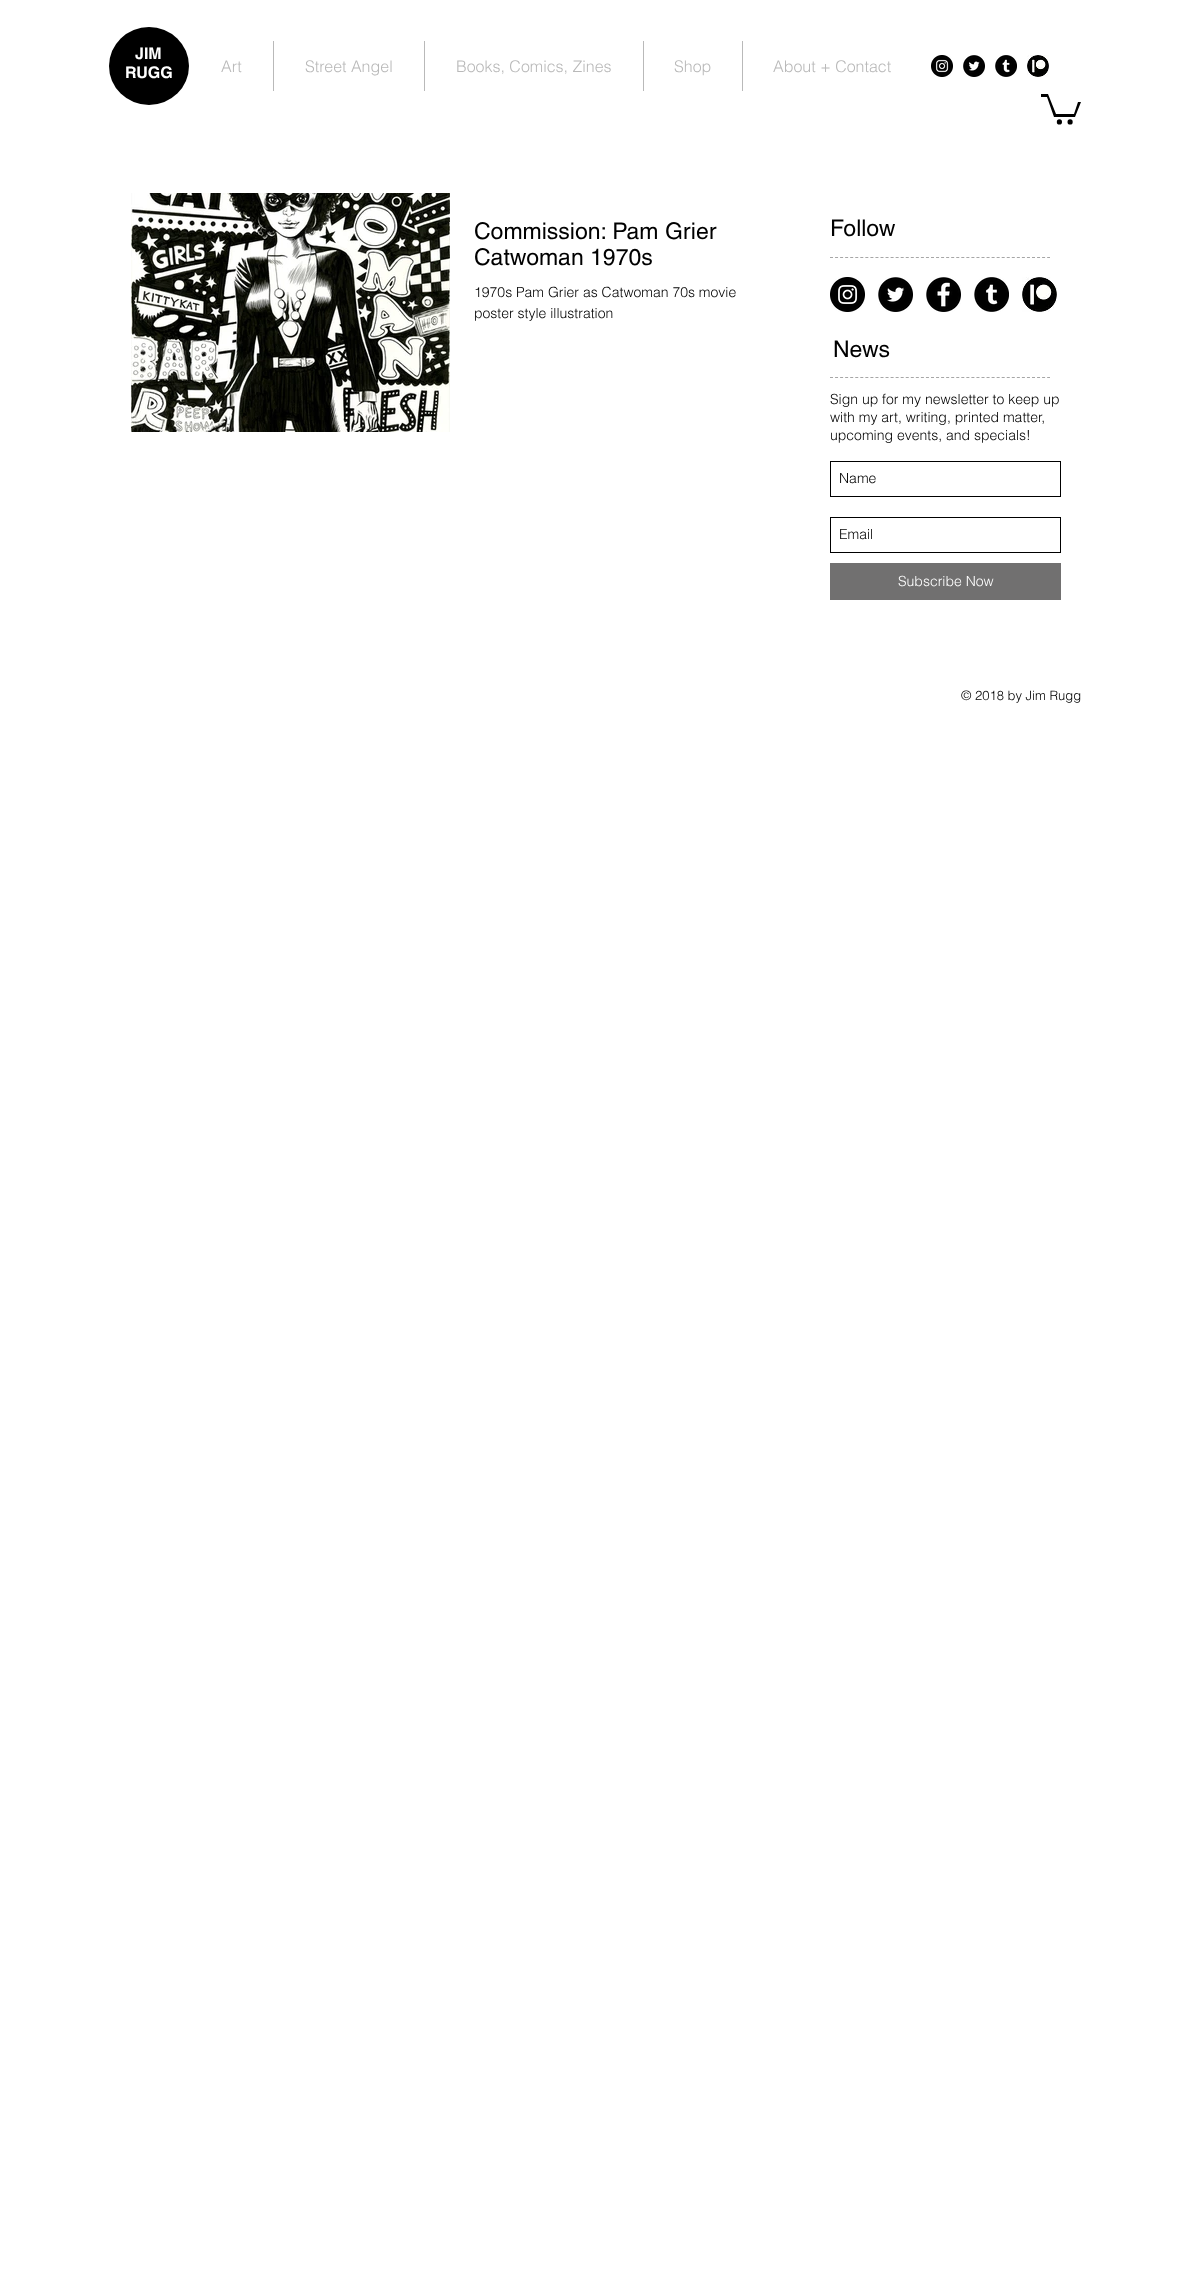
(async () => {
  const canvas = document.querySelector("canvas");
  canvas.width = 1182;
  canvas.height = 2287;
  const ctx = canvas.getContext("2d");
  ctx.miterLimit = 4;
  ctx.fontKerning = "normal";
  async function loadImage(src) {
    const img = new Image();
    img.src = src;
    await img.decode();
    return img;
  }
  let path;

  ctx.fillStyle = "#ffffff";
  ctx.fillRect(0, 0, 1182, 2287);
  ctx.fillStyle = "#000000";
  ctx.beginPath();
  ctx.ellipse(149, 66, 40, 39, 0, 0, Math.PI * 2);
  ctx.fill();
  for (const [x, y, w, h, color] of [
    [273, 41, 1, 50, "#b9b9b9"],
    [424, 41, 1, 50, "#b9b9b9"],
    [643, 41, 1, 50, "#b9b9b9"],
    [742, 41, 1, 50, "#b9b9b9"],
  ]) {
    ctx.fillStyle = color;
    ctx.fillRect(x, y, w, h);
  }
  ctx.drawImage(await loadImage("img/1.png"), 931, 55, 22, 22);
  ctx.drawImage(await loadImage("img/2.png"), 963, 55, 22, 22);
  ctx.drawImage(await loadImage("img/3.png"), 995, 55, 22, 22);
  ctx.drawImage(await loadImage("img/4.png"), 1027, 55, 22, 22);
  ctx.fillStyle = "#000000";
  path = new Path2D("M1081 102L1075 117H1054L1047 97H1041V94H1048L1056 114H1074L1078 102");
  ctx.fill(path);
  ctx.beginPath();
  ctx.arc(1070.1, 121.9, 2.6, 0, Math.PI * 2);
  ctx.fill();
  ctx.beginPath();
  ctx.arc(1059.4, 121.9, 2.6, 0, Math.PI * 2);
  ctx.fill();
  ctx.drawImage(await loadImage("img/5.png"), 131, 193, 319, 239);
  path = new Path2D("M830 257.5H1050");
  ctx.strokeStyle = "#a6a6a6";
  ctx.setLineDash([3, 2.05]);
  ctx.stroke(path);
  ctx.drawImage(await loadImage("img/6.png"), 830, 277, 35, 35);
  ctx.drawImage(await loadImage("img/7.png"), 878, 277, 35, 35);
  ctx.drawImage(await loadImage("img/8.png"), 926, 277, 35, 35);
  ctx.drawImage(await loadImage("img/9.png"), 974, 277, 35, 35);
  ctx.drawImage(await loadImage("img/10.png"), 1022, 277, 35, 35);
  path = new Path2D("M830 377.5H1050");
  ctx.stroke(path);
  ctx.strokeStyle = "#000000";
  ctx.setLineDash([]);
  ctx.strokeRect(830.5, 461.5, 230, 35);
  ctx.strokeRect(830.5, 517.5, 230, 35);
  ctx.fillStyle = "#717070";
  ctx.fillRect(830, 563, 231, 37);
  ctx.font = "bold 16px helvetica";
  ctx.fillStyle = "#ffffff";
  ctx.fillText("JIM", 135, 59);
  ctx.fillText("RUGG", 125, 78);
  ctx.font = "300 16px helvetica";
  ctx.fillStyle = "#b9b9b9";
  for (const [text, x, y] of [
    ["Art", 221, 72],
    ["Street Angel", 305, 72],
    ["Books, Comics, Zines", 456, 72],
    ["Shop", 674, 72],
    ["About + Contact", 773, 72],
  ]) {
    ctx.fillText(text, x, y);
  }
  ctx.font = "23px helvetica";
  ctx.fillStyle = "#000000";
  ctx.fillText("Commission: Pam Grier", 474, 239);
  ctx.fillText("Catwoman 1970s", 474, 265);
  ctx.font = "300 14px helvetica";
  ctx.fillText("1970s Pam Grier as Catwoman 70s movie", 474, 297);
  ctx.fillText("poster style illustration", 474, 318);
  ctx.font = "23px helvetica";
  ctx.fillText("Follow", 830, 236);
  ctx.fillText("News", 833, 357);
  ctx.font = "300 14px helvetica";
  for (const [text, x, y] of [
    ["Sign up for my newsletter to keep up", 830, 404],
    ["with my art, writing, printed matter,", 830, 422],
    ["upcoming events, and specials!", 830, 440],
    ["Name", 839, 483],
    ["Email", 839, 539],
  ]) {
    ctx.fillText(text, x, y);
  }
  ctx.fillStyle = "#ffffff";
  ctx.fillText("Subscribe Now", 898, 586);
  ctx.font = "300 13px helvetica";
  ctx.fillStyle = "#000000";
  ctx.fillText("© 2018 by Jim Rugg", 961, 700);
})();
